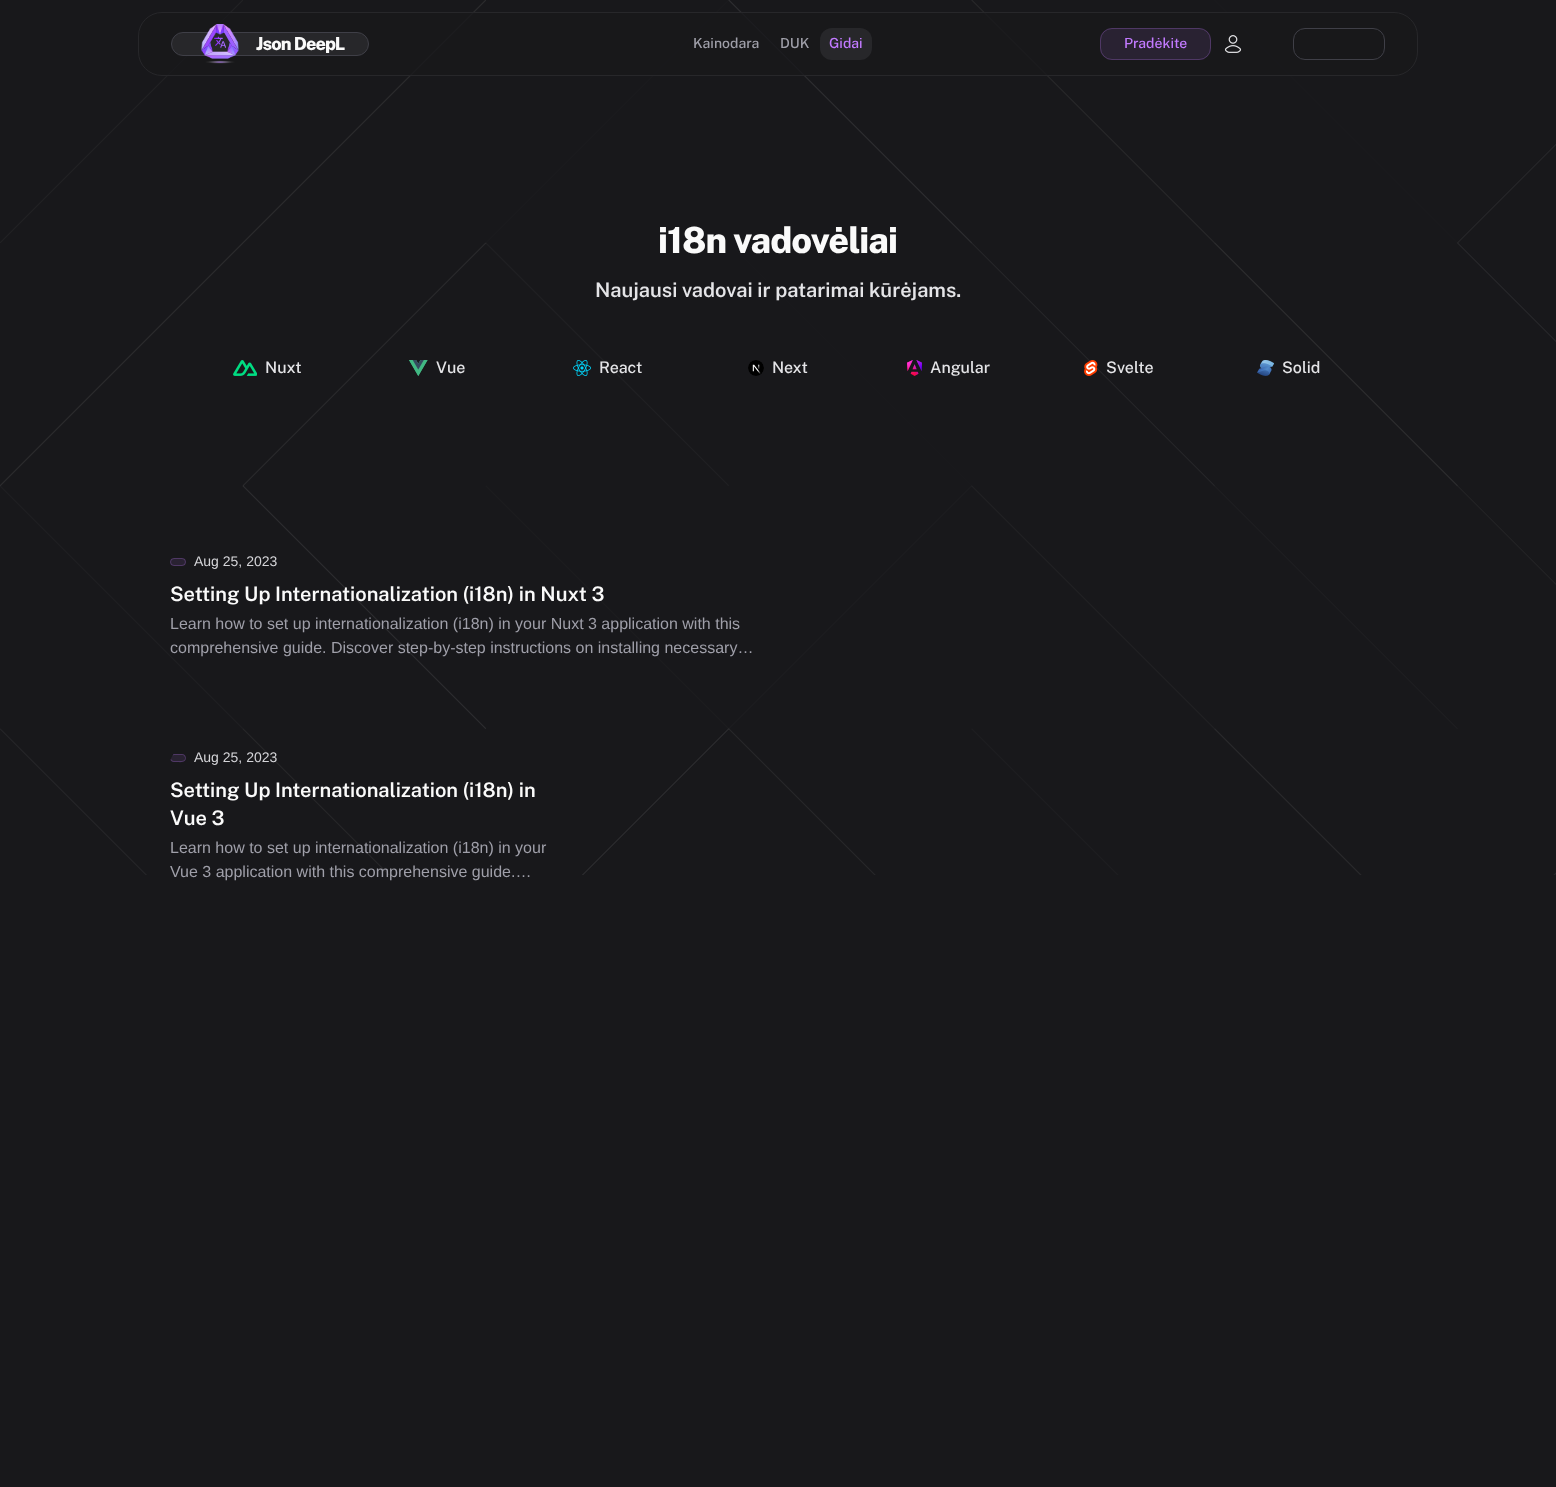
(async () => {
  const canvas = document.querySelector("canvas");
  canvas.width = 1556;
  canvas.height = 1487;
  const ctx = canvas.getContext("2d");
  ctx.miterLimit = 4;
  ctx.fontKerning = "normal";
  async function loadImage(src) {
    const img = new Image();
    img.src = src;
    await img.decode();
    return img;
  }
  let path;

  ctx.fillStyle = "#18181b";
  ctx.fillRect(0, 0, 1556, 1487);
  ctx.drawImage(await loadImage("img/3.png"), 0, 0, 1556, 875);
  ctx.fillStyle = "rgba(24, 24, 27, 0.75)";
  ctx.beginPath();
  ctx.roundRect(138.5, 12.5, 1279, 63, 23.5);
  ctx.fill();
  ctx.strokeStyle = "#27272a";
  ctx.stroke();
  ctx.fillStyle = "#27272a";
  ctx.beginPath();
  ctx.roundRect(171.5, 32.5, 197, 23, 11.5);
  ctx.fill();
  ctx.strokeStyle = "#3f3f47";
  ctx.stroke();
  ctx.drawImage(await loadImage("img/1.png"), 201, 24, 38, 40);
  ctx.beginPath();
  ctx.roundRect(820, 28, 52, 32, 12);
  ctx.fill();
  ctx.fillStyle = "#292232";
  ctx.beginPath();
  ctx.roundRect(1100, 28, 111, 32, 12);
  ctx.fill();
  ctx.beginPath();
  ctx.roundRect(1100.5, 28.5, 110, 31, 11.5);
  ctx.strokeStyle = "rgba(194, 122, 255, 0.25)";
  ctx.stroke();
  ctx.drawImage(await loadImage("img/2.png"), 1224, 35, 18, 18);
  ctx.beginPath();
  ctx.roundRect(1293.5, 28.5, 91, 31, 11.5);
  ctx.strokeStyle = "#3f3f47";
  ctx.stroke();
  ctx.drawImage(await loadImage("img/4.png"), 233, 360, 24, 16);
  ctx.drawImage(await loadImage("img/5.png"), 409, 360, 19, 16);
  ctx.drawImage(await loadImage("img/6.png"), 573, 360, 18, 16);
  ctx.drawImage(await loadImage("img/7.png"), 748, 360, 16, 16);
  ctx.drawImage(await loadImage("img/8.png"), 907, 360, 15, 16);
  ctx.drawImage(await loadImage("img/9.png"), 1084, 360, 14, 16);
  ctx.drawImage(await loadImage("img/10.png"), 1257, 360, 17, 16);
  ctx.beginPath();
  ctx.roundRect(170, 558, 16, 8, 4);
  ctx.fill();
  ctx.beginPath();
  ctx.roundRect(170.5, 558.5, 15, 7, 3.5);
  ctx.strokeStyle = "rgba(194, 122, 255, 0.25)";
  ctx.stroke();
  ctx.save();
  ctx.beginPath();
  ctx.roundRect(170, 748, 384, 136, 16);
  ctx.clip();
  ctx.beginPath();
  ctx.roundRect(170, 754, 16, 8, 4);
  ctx.fill();
  ctx.restore();
  ctx.fillStyle = "rgba(194, 122, 255, 0.25)";
  path = new Path2D("M174 754H173.5L172.5 755.5C173.5 754.5 175.5 755 176.5 755H183C184 755.5 184.5 756.5 185 757.5C186 762 179 761 176.5 761C174.5 761 171.5 761.5 171 758.5L170.5 760C172 762.5 174.5 762 176.5 762C179 762 181.5 762.5 183.5 761.5C187.5 760 186 754 182 754Z");
  ctx.fill(path);
  ctx.letterSpacing = "-0.9px";
  ctx.font = "800 18px Public Sans";
  ctx.fillStyle = "#fafafa";
  ctx.fillText("Json DeepL", 256, 50);
  ctx.letterSpacing = "0px";
  ctx.font = "500 14px Public Sans";
  ctx.fillStyle = "#9f9fa9";
  ctx.fillText("Kainodara", 693, 48);
  ctx.fillText("DUK", 780, 48);
  ctx.fillStyle = "#c27aff";
  ctx.fillText("Gidai", 829, 48);
  ctx.fillText("Pradėkite", 1124, 48);
  ctx.letterSpacing = "-0.9px";
  ctx.font = "800 36px Public Sans";
  ctx.fillStyle = "#fafafa";
  ctx.fillText("i18n vadovėliai", 658, 253);
  ctx.letterSpacing = "0px";
  ctx.font = "600 20px Public Sans";
  ctx.fillStyle = "#e4e4e7";
  ctx.fillText("Naujausi vadovai ir patarimai kūrėjams.", 595, 297);
  ctx.font = "500 16px Public Sans";
  for (const [text, x, y] of [
    ["Nuxt", 265, 373],
    ["Vue", 436, 373],
    ["React", 599, 373],
    ["Next", 772, 373],
    ["Angular", 930, 373],
    ["Svelte", 1106, 373],
    ["Solid", 1282, 373],
  ]) {
    ctx.fillText(text, x, y);
  }
  ctx.font = "14px Liberation Sans";
  ctx.fillStyle = "#d4d4d8";
  ctx.fillText("Aug 25, 2023", 194, 566);
  ctx.font = "600 20px Public Sans";
  ctx.fillStyle = "#fafafa";
  ctx.fillText("Setting Up Internationalization (i18n) in Nuxt 3", 170, 601);
  ctx.font = "16px Liberation Sans";
  ctx.fillStyle = "#9f9fa9";
  ctx.fillText("Learn how to set up internationalization (i18n) in your Nuxt 3 application with this", 170, 629);
  ctx.fillText("comprehensive guide. Discover step-by-step instructions on installing necessary…", 170, 653);
  ctx.font = "14px Liberation Sans";
  ctx.fillStyle = "#d4d4d8";
  ctx.fillText("Aug 25, 2023", 194, 762);
  ctx.font = "600 20px Public Sans";
  ctx.fillStyle = "#fafafa";
  ctx.fillText("Setting Up Internationalization (i18n) in", 170, 797);
  ctx.fillText("Vue 3", 170, 825);
  ctx.font = "16px Liberation Sans";
  ctx.fillStyle = "#9f9fa9";
  ctx.fillText("Learn how to set up internationalization (i18n) in your", 170, 853);
  ctx.fillText("Vue 3 application with this comprehensive guide.…", 170, 877);
})();
